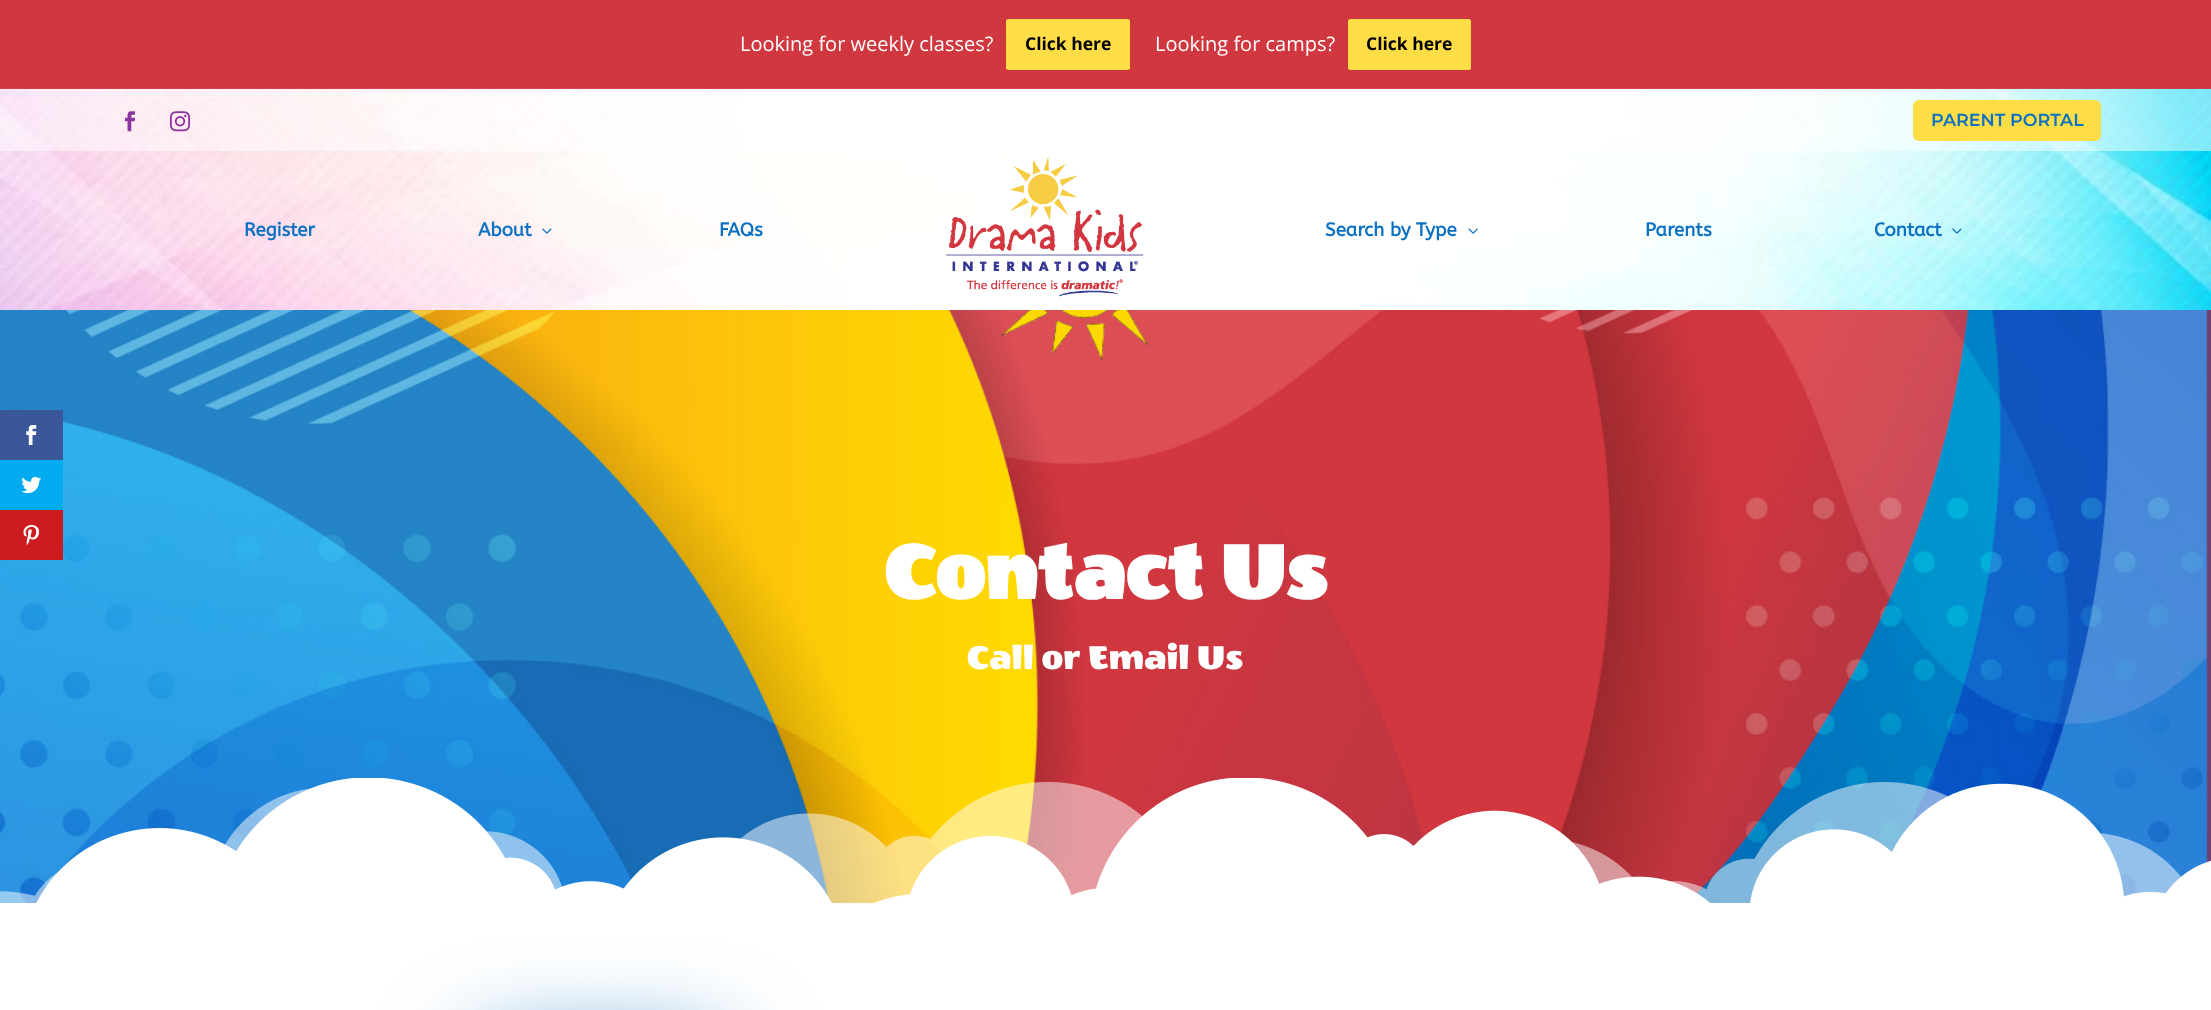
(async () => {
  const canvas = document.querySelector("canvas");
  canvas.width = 2211;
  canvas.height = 1010;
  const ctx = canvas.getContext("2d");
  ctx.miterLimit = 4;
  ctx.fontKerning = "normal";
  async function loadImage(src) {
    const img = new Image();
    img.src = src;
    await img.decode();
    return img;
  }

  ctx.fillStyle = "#ffffff";
  ctx.fillRect(0, 0, 2211, 1010);
  ctx.fillStyle = "#d1373f";
  ctx.fillRect(0, 0, 2211, 89);
  ctx.fillStyle = "#ffdd47";
  ctx.beginPath();
  ctx.roundRect(1006, 19, 124, 51, 2.5);
  ctx.fill();
  ctx.beginPath();
  ctx.roundRect(1348, 19, 123, 51, 2.5);
  ctx.fill();
  ctx.drawImage(await loadImage("img/11.png"), 0, 310, 2211, 593);
  ctx.fillStyle = "#3a579a";
  ctx.fillRect(0, 410, 63, 50);
  ctx.drawImage(await loadImage("img/1.png"), 26, 425, 11, 20);
  ctx.fillStyle = "#00abf0";
  ctx.fillRect(0, 460, 63, 50);
  ctx.drawImage(await loadImage("img/2.png"), 21, 476, 21, 18);
  ctx.fillStyle = "#cd1c1f";
  ctx.fillRect(0, 510, 63, 50);
  ctx.drawImage(await loadImage("img/3.png"), 23, 525, 16, 20);
  ctx.drawImage(await loadImage("img/4.png"), 0, 88, 2211, 222);
  ctx.fillStyle = "rgba(255, 255, 255, 0.5)";
  ctx.fillRect(0, 89, 2211, 62);
  ctx.drawImage(await loadImage("img/5.png"), 125, 111, 10, 21);
  ctx.drawImage(await loadImage("img/6.png"), 170, 111, 20, 21);
  ctx.fillStyle = "#ffdd47";
  ctx.beginPath();
  ctx.roundRect(1913, 100, 188, 41, 6);
  ctx.fill();
  ctx.drawImage(await loadImage("img/7.png"), 542, 228, 10, 6);
  ctx.drawImage(await loadImage("img/8.png"), 946, 157, 198, 140);
  ctx.drawImage(await loadImage("img/9.png"), 1468, 228, 10, 6);
  ctx.drawImage(await loadImage("img/10.png"), 1952, 228, 10, 6);
  ctx.drawImage(await loadImage("img/12.png"), 0, 778, 2211, 125);
  ctx.fillStyle = "#0c71c3";
  ctx.filter = "blur(50px)";
  ctx.beginPath();
  ctx.roundRect(480, 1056, 238, 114, 10);
  ctx.fill();
  ctx.filter = "none";
  ctx.font = "20px Open Sans";
  ctx.fillStyle = "#ffffff";
  ctx.fillText("Looking for weekly classes?", 740, 51);
  ctx.font = "bold 17.5px Open Sans";
  ctx.fillStyle = "#000000";
  ctx.fillText("Click here", 1025, 50);
  ctx.font = "20px Open Sans";
  ctx.fillStyle = "#ffffff";
  ctx.fillText("Looking for camps?", 1155, 51);
  ctx.font = "bold 17.5px Open Sans";
  ctx.fillStyle = "#000000";
  ctx.fillText("Click here", 1366, 50);
  ctx.font = "600 17.5px Montserrat";
  ctx.fillStyle = "#0c71c3";
  ctx.fillText("PARENT PORTAL", 1931, 126);
  ctx.font = "bold 18.75px ABeeZee";
  for (const [text, x, y] of [
    ["Register", 244, 236],
    ["About", 478, 236],
    ["FAQs", 719, 236],
    ["Search by Type", 1325, 236],
    ["Parents", 1645, 236],
    ["Contact", 1874, 236],
  ]) {
    ctx.fillText(text, x, y);
  }
  ctx.font = "bold 86.25px Wendy One";
  ctx.fillStyle = "#ffffff";
  ctx.fillText("Contact Us", 884, 599);
  ctx.font = "37.5px Wendy One";
  ctx.fillText("Call or Email Us", 967, 669);
})();
